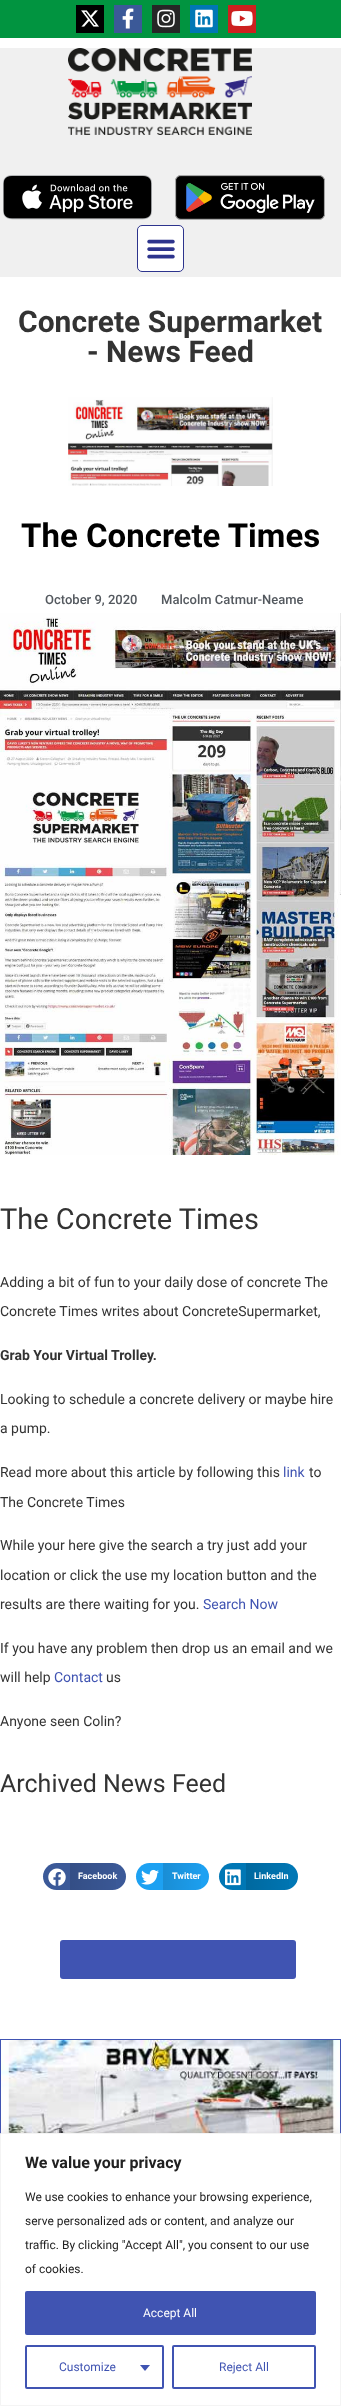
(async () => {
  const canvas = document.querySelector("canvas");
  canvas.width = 341;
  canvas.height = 2406;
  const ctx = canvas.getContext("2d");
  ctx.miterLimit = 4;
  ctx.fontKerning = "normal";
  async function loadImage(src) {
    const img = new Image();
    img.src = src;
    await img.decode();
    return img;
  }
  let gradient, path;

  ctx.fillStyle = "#ffffff";
  ctx.fillRect(0, 0, 341, 2406);
  ctx.fillStyle = "#019440";
  ctx.fillRect(0, 0, 341, 38);
  ctx.fillStyle = "#000000";
  ctx.fillRect(76, 5, 28, 28);
  ctx.drawImage(await loadImage("img/1.png"), 81, 10, 18, 17);
  ctx.fillStyle = "#3b5998";
  ctx.fillRect(114, 5, 28, 28);
  ctx.drawImage(await loadImage("img/2.png"), 122, 8, 12, 21);
  ctx.fillStyle = "#262626";
  ctx.fillRect(152, 5, 28, 28);
  ctx.drawImage(await loadImage("img/3.png"), 157, 9, 18, 19);
  ctx.fillStyle = "#0077b5";
  ctx.fillRect(190, 5, 28, 28);
  ctx.drawImage(await loadImage("img/4.png"), 195, 9, 18, 19);
  ctx.fillStyle = "#cd201f";
  ctx.fillRect(228, 5, 28, 28);
  ctx.drawImage(await loadImage("img/5.png"), 231, 11, 22, 15);
  ctx.fillStyle = "#f0f0f0";
  ctx.fillRect(0, 48, 341, 229);
  ctx.drawImage(await loadImage("img/6.png"), 68, 48, 184, 87);
  ctx.drawImage(await loadImage("img/7.png"), 3, 175, 149, 45);
  ctx.drawImage(await loadImage("img/8.png"), 175, 175, 150, 45);
  ctx.fillStyle = "#ffffff";
  ctx.beginPath();
  ctx.roundRect(137.5, 225.5, 46, 46, 4.5);
  ctx.fill();
  ctx.strokeStyle = "#2d348d";
  ctx.stroke();
  ctx.drawImage(await loadImage("img/9.png"), 147, 239, 28, 20);
  ctx.drawImage(await loadImage("img/10.png"), 68, 397, 205, 89);
  ctx.drawImage(await loadImage("img/11.png"), 0, 613, 341, 542);
  ctx.fillStyle = "#3b5998";
  ctx.beginPath();
  ctx.roundRect(43, 1863, 83, 27, 13.5);
  ctx.fill();
  ctx.drawImage(await loadImage("img/12.png"), 48, 1868, 18, 18);
  gradient = ctx.createLinearGradient(70, 1877, 126, 1877);
  gradient.addColorStop(0, "rgba(0, 0, 0, 0.12)");
  gradient.addColorStop(1, "rgba(0, 0, 0, 0)");
  ctx.fillStyle = gradient;
  ctx.fillRect(70, 1863, 46, 27);
  ctx.fillStyle = "#1da1f2";
  ctx.beginPath();
  ctx.roundRect(136, 1863, 73, 27, 13.5);
  ctx.fill();
  ctx.drawImage(await loadImage("img/13.png"), 141, 1869, 18, 16);
  gradient = ctx.createLinearGradient(163, 1877, 209, 1877);
  gradient.addColorStop(0, "rgba(0, 0, 0, 0.12)");
  gradient.addColorStop(1, "rgba(0, 0, 0, 0)");
  ctx.fillStyle = gradient;
  ctx.fillRect(163, 1863, 38, 27);
  ctx.fillStyle = "#0077b5";
  ctx.beginPath();
  ctx.roundRect(219, 1863, 79, 27, 13.5);
  ctx.fill();
  ctx.drawImage(await loadImage("img/14.png"), 225, 1869, 16, 17);
  gradient = ctx.createLinearGradient(246, 1877, 298, 1877);
  gradient.addColorStop(0, "rgba(0, 0, 0, 0.12)");
  gradient.addColorStop(1, "rgba(0, 0, 0, 0)");
  ctx.fillStyle = gradient;
  ctx.fillRect(246, 1863, 43, 27);
  ctx.fillStyle = "#4054b2";
  ctx.beginPath();
  ctx.roundRect(60, 1940, 236, 39, 3);
  ctx.fill();
  ctx.strokeStyle = "#4054b2";
  ctx.strokeRect(0.5, 2039.5, 340, 243);
  ctx.drawImage(await loadImage("img/15.png"), 1, 2040, 339, 93);
  ctx.fillStyle = "rgba(172, 171, 171, 0.3)";
  ctx.filter = "blur(5px)";
  ctx.beginPath();
  ctx.rect(0, 2132, 341, 273);
  ctx.fill();
  ctx.filter = "none";
  ctx.fillStyle = "#ffffff";
  ctx.beginPath();
  ctx.rect(0.5, 2133.5, 340, 272);
  ctx.fill();
  ctx.strokeStyle = "#f4f4f4";
  ctx.stroke();
  ctx.fillStyle = "#4054b2";
  ctx.beginPath();
  ctx.roundRect(26, 2292, 289, 42, 1);
  ctx.fill();
  ctx.strokeStyle = "#4054b2";
  ctx.lineWidth = 2;
  ctx.stroke();
  ctx.beginPath();
  ctx.roundRect(26, 2346, 137, 42, 1);
  ctx.stroke();
  path = new Path2D("M140 2365H150L145 2371Z");
  ctx.fill(path);
  ctx.beginPath();
  ctx.roundRect(173, 2346, 142, 42, 1);
  ctx.stroke();
  ctx.font = "bold 30px Roboto";
  ctx.fillStyle = "#333333";
  ctx.fillText("Concrete Supermarket", 18, 332);
  ctx.fillText("- News Feed", 87, 362);
  ctx.font = "bold 33px Roboto";
  ctx.fillStyle = "#000000";
  ctx.fillText("The Concrete Times", 21, 547);
  ctx.font = "500 13px Roboto";
  ctx.fillStyle = "#54595f";
  ctx.fillText("October 9, 2020", 45, 604);
  ctx.fillText("Malcolm Catmur-Neame", 161, 604);
  ctx.font = "29px Roboto";
  ctx.fillStyle = "#333333";
  ctx.fillText("The Concrete Times", 0, 1229);
  ctx.font = "14px Roboto";
  ctx.fillText("Adding a bit of fun to your daily dose of concrete The", 0, 1287);
  ctx.fillText("Concrete Times writes about ConcreteSupermarket,", 0, 1316);
  ctx.font = "bold 14px Roboto";
  ctx.fillText("Grab Your Virtual Trolley.", 0, 1360);
  ctx.font = "14px Roboto";
  for (const [text, x, y] of [
    ["Looking to schedule a concrete delivery or maybe hire", 0, 1404],
    ["a pump.", 0, 1433],
    ["Read more about this article by following this", 0, 1477],
  ]) {
    ctx.fillText(text, x, y);
  }
  ctx.fillStyle = "#4054b2";
  ctx.fillText("link", 283, 1477);
  ctx.fillStyle = "#333333";
  for (const [text, x, y] of [
    ["to", 309, 1477],
    ["The Concrete Times", 0, 1507],
    ["While your here give the search a try just add your", 0, 1550],
    ["location or click the use my location button and the", 0, 1580],
    ["results are there waiting for you.", 0, 1609],
  ]) {
    ctx.fillText(text, x, y);
  }
  ctx.fillStyle = "#4054b2";
  ctx.fillText("Search Now", 203, 1609);
  ctx.fillStyle = "#333333";
  ctx.fillText("If you have any problem then drop us an email and we", 0, 1653);
  ctx.fillText("will help", 0, 1682);
  ctx.fillStyle = "#4054b2";
  ctx.fillText("Contact", 54, 1682);
  ctx.fillStyle = "#333333";
  ctx.fillText("us", 106, 1682);
  ctx.fillText("Anyone seen Colin?", 0, 1726);
  ctx.font = "25px Roboto";
  ctx.fillText("Archived News Feed", 0, 1792);
  ctx.font = "bold 9px Roboto";
  ctx.fillStyle = "#ffffff";
  for (const [text, x, y] of [
    ["Facebook", 78, 1879],
    ["Twitter", 172, 1879],
    ["LinkedIn", 254, 1879],
  ]) {
    ctx.fillText(text, x, y);
  }
  ctx.font = "bold 16px Roboto";
  ctx.fillStyle = "#212121";
  ctx.fillText("We value your privacy", 25, 2168);
  ctx.font = "12px Roboto";
  for (const [text, x, y] of [
    ["We use cookies to enhance your browsing experience,", 25, 2201],
    ["serve personalized ads or content, and analyze our", 25, 2225],
    ["traffic. By clicking \"Accept All\", you consent to our use", 25, 2249],
    ["of cookies.", 25, 2273],
  ]) {
    ctx.fillText(text, x, y);
  }
  ctx.fillStyle = "#ffffff";
  ctx.fillText("Accept All", 143, 2317);
  ctx.fillStyle = "#4054b2";
  ctx.fillText("Customize", 59, 2371);
  ctx.fillText("Reject All", 219, 2371);
})();
